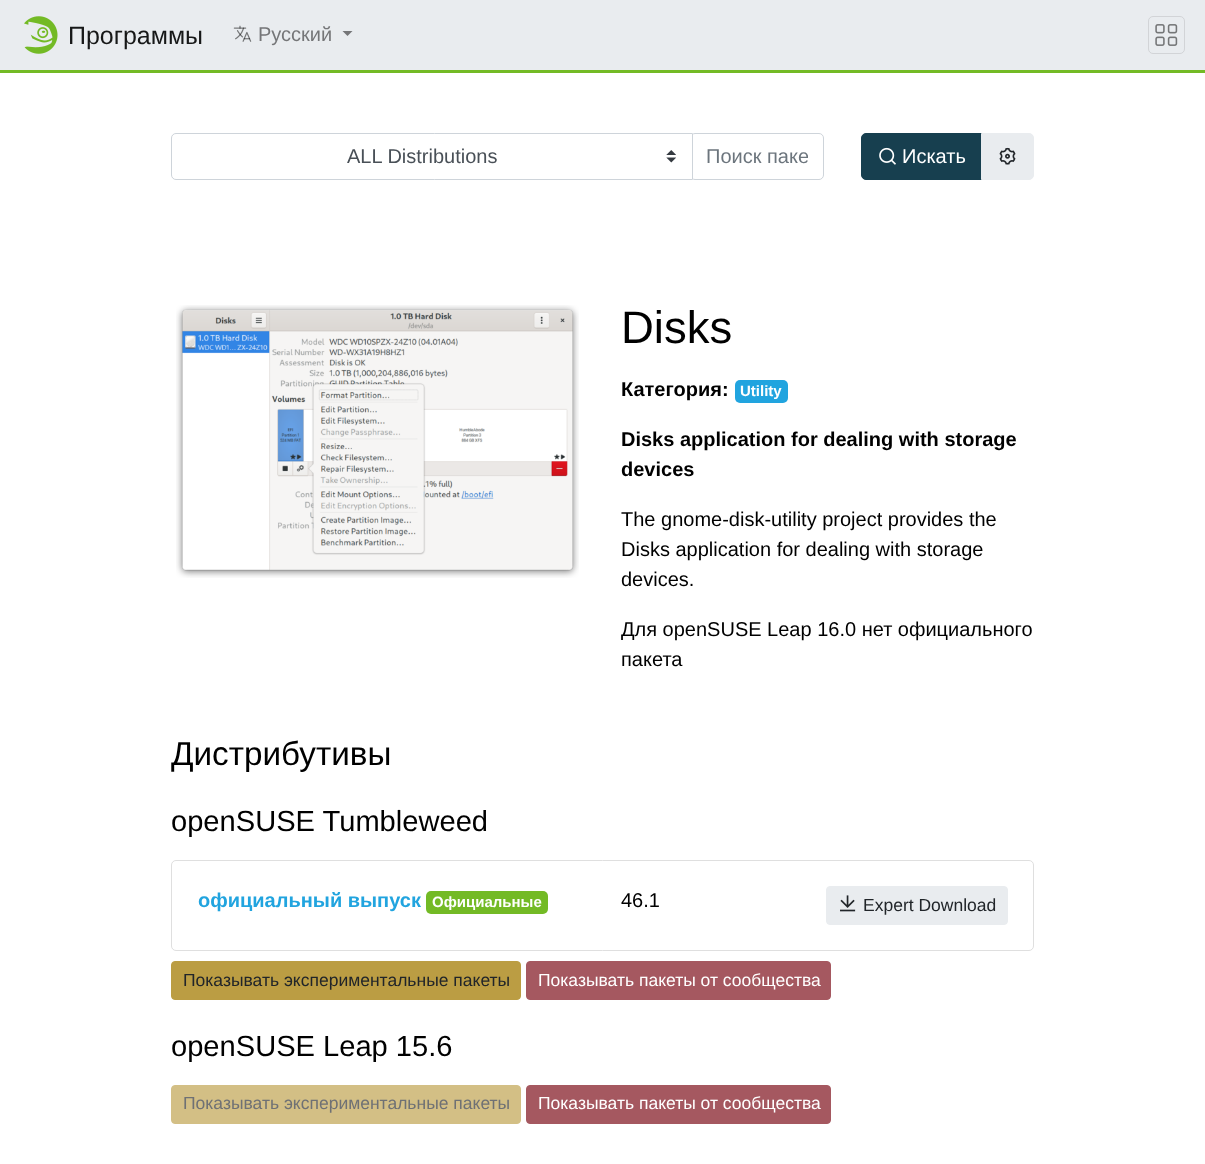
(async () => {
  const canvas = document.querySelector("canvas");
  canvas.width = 1205;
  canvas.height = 1164;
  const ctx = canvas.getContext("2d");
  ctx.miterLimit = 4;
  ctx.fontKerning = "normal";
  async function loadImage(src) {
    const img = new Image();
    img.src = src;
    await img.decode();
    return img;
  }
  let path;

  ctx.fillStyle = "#ffffff";
  ctx.fillRect(0, 0, 1205, 1164);
  ctx.fillStyle = "#e9ecef";
  ctx.fillRect(0, 0, 1205, 70);
  ctx.fillStyle = "#73ba25";
  ctx.fillRect(0, 70, 1205, 3);
  ctx.drawImage(await loadImage("img/1.png"), 24, 16, 34, 38);
  ctx.drawImage(await loadImage("img/2.png"), 233, 25, 19, 17);
  ctx.fillStyle = "#757678";
  path = new Path2D("M342.5 31H352.5L347.5 36Z");
  ctx.fill(path);
  ctx.beginPath();
  ctx.roundRect(1148.5, 16.5, 36, 37, 4.5);
  ctx.strokeStyle = "#d2d4d7";
  ctx.stroke();
  ctx.drawImage(await loadImage("img/3.png"), 1155, 24, 23, 22);
  ctx.beginPath();
  ctx.roundRect(690.5, 133.5, 133, 46, 4.5);
  ctx.strokeStyle = "#ced4da";
  ctx.stroke();
  ctx.fillStyle = "#ffffff";
  ctx.beginPath();
  ctx.roundRect(171, 133, 522, 47, [5, 0, 0, 5]);
  ctx.fill();
  ctx.drawImage(await loadImage("img/4.png"), 666, 150, 10, 13);
  ctx.beginPath();
  ctx.roundRect(171.5, 133.5, 521, 46, [4.5, 0, 0, 4.5]);
  ctx.stroke();
  ctx.fillStyle = "#173f4f";
  ctx.beginPath();
  ctx.roundRect(861.5, 133.5, 121, 46, [4.5, 0, 0, 4.5]);
  ctx.fill();
  ctx.strokeStyle = "#173f4f";
  ctx.stroke();
  ctx.drawImage(await loadImage("img/5.png"), 879, 147, 17, 18);
  ctx.fillStyle = "#e9ecef";
  ctx.beginPath();
  ctx.roundRect(981.5, 133.5, 52, 46, [0, 4.5, 4.5, 0]);
  ctx.fill();
  ctx.strokeStyle = "#e9ecef";
  ctx.stroke();
  ctx.drawImage(await loadImage("img/6.png"), 999, 147, 17, 18);
  ctx.drawImage(await loadImage("img/7.png"), 176, 305, 403, 273);
  ctx.fillStyle = "#21a4df";
  ctx.beginPath();
  ctx.roundRect(735, 380, 53, 23, 5);
  ctx.fill();
  ctx.beginPath();
  ctx.roundRect(171.5, 860.5, 862, 90, 4.5);
  ctx.strokeStyle = "#dfdfdf";
  ctx.stroke();
  ctx.fillStyle = "#73ba25";
  ctx.beginPath();
  ctx.roundRect(426, 891, 122, 23, 5);
  ctx.fill();
  ctx.fillStyle = "#e9ecef";
  ctx.beginPath();
  ctx.roundRect(826.5, 886.5, 181, 38, 3.5);
  ctx.fill();
  ctx.strokeStyle = "#e9ecef";
  ctx.stroke();
  ctx.drawImage(await loadImage("img/8.png"), 840, 895, 16, 17);
  ctx.fillStyle = "#bb9d43";
  ctx.beginPath();
  ctx.roundRect(171.5, 961.5, 349, 38, 3.5);
  ctx.fill();
  ctx.strokeStyle = "#bb9d43";
  ctx.stroke();
  ctx.fillStyle = "#a55860";
  ctx.beginPath();
  ctx.roundRect(526.5, 961.5, 304, 38, 3.5);
  ctx.fill();
  ctx.strokeStyle = "#a55860";
  ctx.stroke();
  ctx.fillStyle = "#d3bf85";
  ctx.beginPath();
  ctx.roundRect(171.5, 1085.5, 349, 38, 3.5);
  ctx.fill();
  ctx.strokeStyle = "#d3bf85";
  ctx.stroke();
  ctx.fillStyle = "#a55860";
  ctx.beginPath();
  ctx.roundRect(526.5, 1085.5, 304, 38, 3.5);
  ctx.fill();
  ctx.strokeStyle = "#a55860";
  ctx.stroke();
  ctx.font = "25px Liberation Sans";
  ctx.fillStyle = "#171818";
  ctx.fillText("Программы", 68, 44);
  ctx.font = "20px Liberation Sans";
  ctx.fillStyle = "#757678";
  ctx.fillText("Русский", 258, 41);
  ctx.fillStyle = "#495057";
  ctx.fillText("ALL Distributions", 347, 163);
  ctx.save();
  ctx.beginPath();
  ctx.rect(706, 145, 102, 23);
  ctx.clip();
  ctx.fillStyle = "#6c757d";
  ctx.fillText("Поиск паке", 706, 163);
  ctx.restore();
  ctx.fillStyle = "#ffffff";
  ctx.fillText("Искать", 902, 163);
  ctx.font = "45.5px Liberation Sans";
  ctx.fillStyle = "#000000";
  ctx.fillText("Disks", 621, 343);
  ctx.font = "bold 20px Liberation Sans";
  ctx.fillText("Категория:", 621, 396);
  ctx.font = "bold 15px Liberation Sans";
  ctx.fillStyle = "#ffffff";
  ctx.fillText("Utility", 740, 396);
  ctx.font = "bold 20px Liberation Sans";
  ctx.fillStyle = "#000000";
  ctx.fillText("Disks application for dealing with storage", 621, 446);
  ctx.fillText("devices", 621, 476);
  ctx.font = "20px Liberation Sans";
  for (const [text, x, y] of [
    ["The gnome-disk-utility project provides the", 621, 526],
    ["Disks application for dealing with storage", 621, 556],
    ["devices.", 621, 586],
    ["Для openSUSE Leap 16.0 нет официального", 621, 636],
    ["пакета", 621, 666],
  ]) {
    ctx.fillText(text, x, y);
  }
  ctx.font = "33.25px Liberation Sans";
  ctx.fillText("Дистрибутивы", 171, 765);
  ctx.font = "29.1px Liberation Sans";
  ctx.fillText("openSUSE Tumbleweed", 171, 831);
  ctx.font = "bold 20px Liberation Sans";
  ctx.fillStyle = "#21a4df";
  ctx.fillText("официальный выпуск", 198, 907);
  ctx.font = "bold 15px Liberation Sans";
  ctx.fillStyle = "#ffffff";
  ctx.fillText("Официальные", 432, 907);
  ctx.font = "20px Liberation Sans";
  ctx.fillStyle = "#000000";
  ctx.fillText("46.1", 621, 907);
  ctx.font = "17.5px Liberation Sans";
  ctx.fillStyle = "#212529";
  ctx.fillText("Expert Download", 863, 911);
  ctx.fillText("Показывать экспериментальные пакеты", 183, 986);
  ctx.fillStyle = "#ffffff";
  ctx.fillText("Показывать пакеты от сообщества", 538, 986);
  ctx.font = "29.1px Liberation Sans";
  ctx.fillStyle = "#000000";
  ctx.fillText("openSUSE Leap 15.6", 171, 1056);
  ctx.font = "17.5px Liberation Sans";
  ctx.fillStyle = "#6f7174";
  ctx.fillText("Показывать экспериментальные пакеты", 183, 1109);
  ctx.fillStyle = "#ffffff";
  ctx.fillText("Показывать пакеты от сообщества", 538, 1109);
})();
